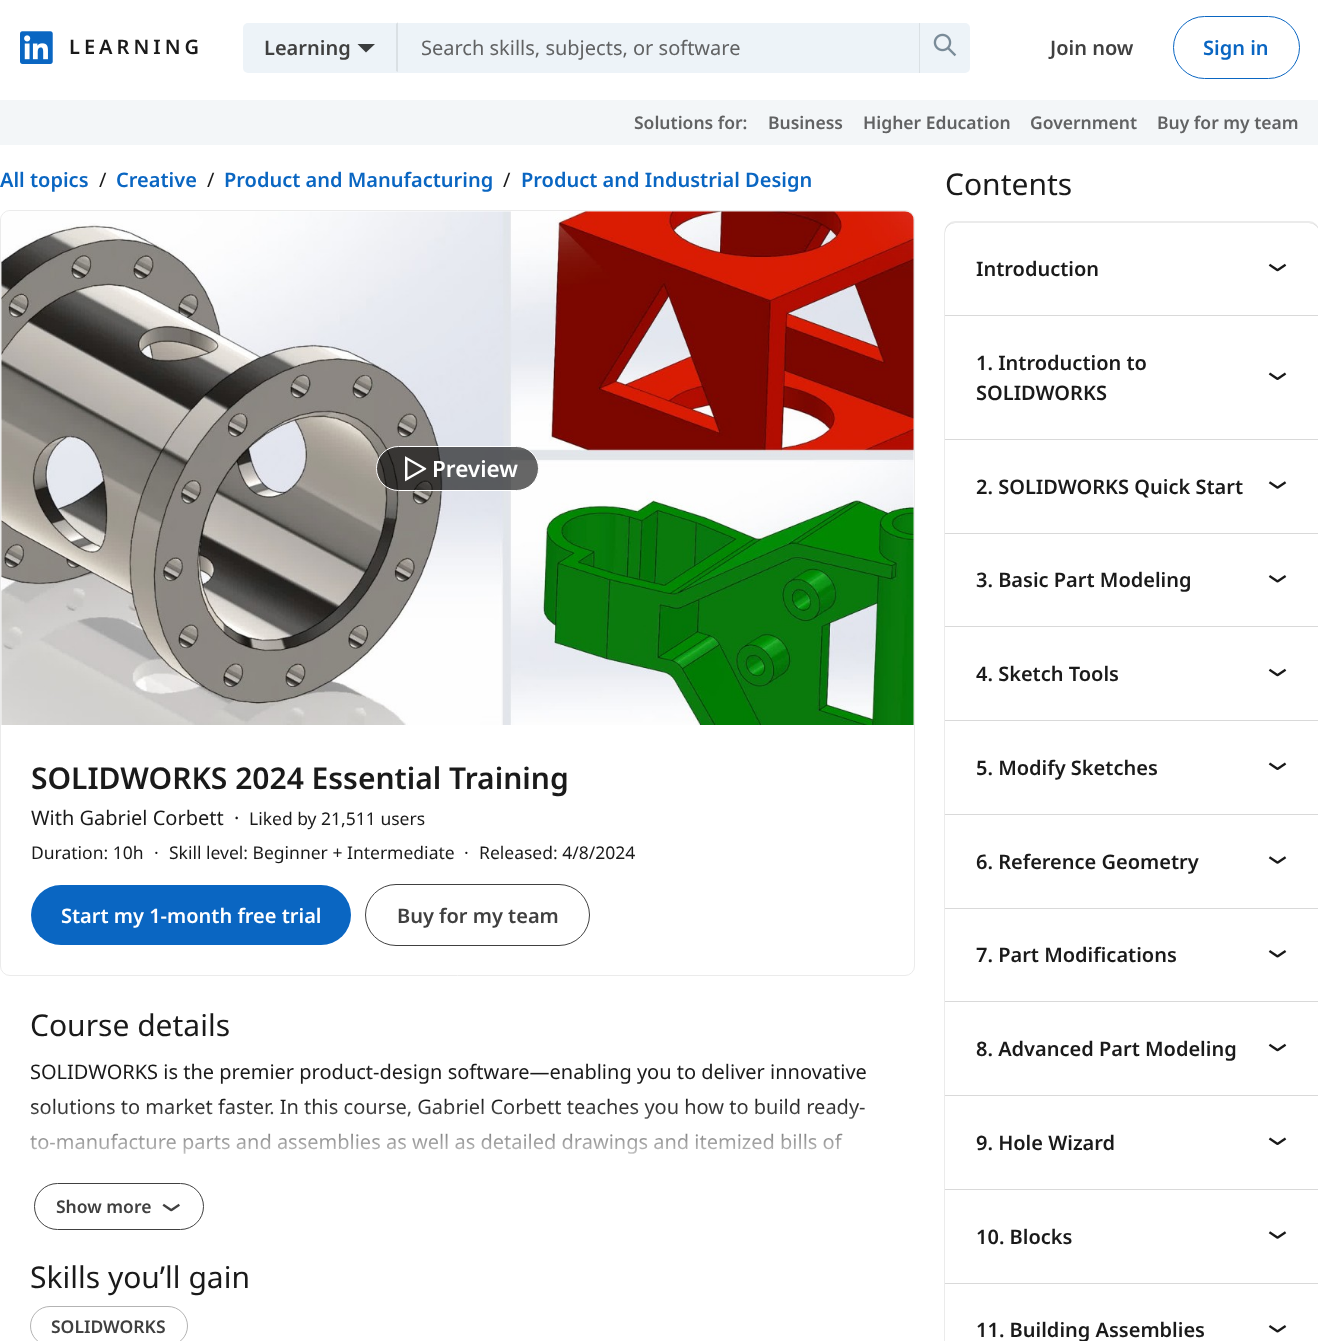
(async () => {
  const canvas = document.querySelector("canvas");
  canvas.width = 1318;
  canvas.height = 1341;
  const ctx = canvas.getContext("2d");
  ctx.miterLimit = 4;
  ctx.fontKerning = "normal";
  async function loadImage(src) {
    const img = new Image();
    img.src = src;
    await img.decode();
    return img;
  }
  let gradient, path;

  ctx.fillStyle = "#ffffff";
  ctx.fillRect(0, 0, 1318, 1341);
  ctx.drawImage(await loadImage("img/1.png"), 20, 31, 33, 33);
  ctx.fillStyle = "#edf3f8";
  ctx.beginPath();
  ctx.roundRect(243, 23, 727, 50, 5);
  ctx.fill();
  ctx.fillStyle = "rgba(0, 0, 0, 0.08)";
  path = new Path2D("M398 22V72L396 71V24Z");
  ctx.fill(path);
  ctx.fillStyle = "#3b3d3e";
  path = new Path2D("M366 52.5L357.5 44H375Z");
  ctx.fill(path, "evenodd");
  ctx.fillStyle = "#dae0e4";
  ctx.fillRect(919, 23, 1, 50);
  ctx.drawImage(await loadImage("img/2.png"), 933, 33, 24, 24);
  ctx.beginPath();
  ctx.roundRect(1173.5, 16.5, 126, 62, 31);
  ctx.strokeStyle = "#0a66c2";
  ctx.stroke();
  ctx.fillStyle = "#f3f6f8";
  ctx.fillRect(0, 100, 1318, 45);
  ctx.beginPath();
  ctx.roundRect(0.5, 210.5, 914, 765, 9.5);
  ctx.strokeStyle = "#ebebeb";
  ctx.stroke();
  ctx.drawImage(await loadImage("img/3.png"), 1, 211, 913, 514);
  ctx.fillStyle = "rgba(0, 0, 0, 0.6)";
  ctx.beginPath();
  ctx.roundRect(376.5, 446.5, 162, 44, 22);
  ctx.fill();
  ctx.strokeStyle = "#ffffff";
  ctx.stroke();
  ctx.drawImage(await loadImage("img/4.png"), 405, 456, 22, 26);
  ctx.fillStyle = "#0a66c2";
  ctx.beginPath();
  ctx.roundRect(31, 885, 320, 60, 30);
  ctx.fill();
  ctx.beginPath();
  ctx.roundRect(365.5, 884.5, 224, 61, 30.5);
  ctx.strokeStyle = "#404040";
  ctx.stroke();
  ctx.beginPath();
  ctx.roundRect(34.5, 1183.5, 169, 46, 23);
  ctx.stroke();
  ctx.drawImage(await loadImage("img/5.png"), 162, 1203, 18, 9);
  ctx.beginPath();
  ctx.roundRect(30.5, 1306.5, 157, 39, 19.5);
  ctx.strokeStyle = "#b3b3b3";
  ctx.stroke();
  ctx.fillStyle = "rgba(0, 0, 0, 0.08)";
  ctx.filter = "blur(0.5px)";
  ctx.beginPath();
  ctx.roundRect(944, 223, 374, 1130, 10);
  ctx.fill();
  ctx.filter = "none";
  ctx.filter = "blur(0.5px)";
  ctx.beginPath();
  ctx.roundRect(946, 223, 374, 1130, 10);
  ctx.fill();
  ctx.filter = "none";
  ctx.filter = "blur(0.5px)";
  ctx.beginPath();
  ctx.roundRect(945, 221, 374, 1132, 10);
  ctx.fill();
  ctx.filter = "none";
  ctx.fillStyle = "#ffffff";
  ctx.beginPath();
  ctx.roundRect(945, 223, 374, 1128, 10);
  ctx.fill();
  ctx.fillStyle = "#d9d9d9";
  ctx.fillRect(945, 315, 373, 1);
  ctx.drawImage(await loadImage("img/6.png"), 1268, 263, 19, 9);
  ctx.fillRect(945, 439, 373, 1);
  ctx.drawImage(await loadImage("img/7.png"), 1268, 372, 19, 8);
  ctx.fillRect(945, 533, 373, 1);
  ctx.drawImage(await loadImage("img/8.png"), 1268, 481, 19, 8);
  ctx.fillRect(945, 626, 373, 1);
  ctx.drawImage(await loadImage("img/9.png"), 1268, 575, 19, 8);
  ctx.fillRect(945, 720, 373, 1);
  ctx.drawImage(await loadImage("img/6.png"), 1268, 668, 19, 9);
  ctx.fillRect(945, 814, 373, 1);
  ctx.drawImage(await loadImage("img/7.png"), 1268, 762, 19, 8);
  ctx.fillRect(945, 908, 373, 1);
  ctx.drawImage(await loadImage("img/8.png"), 1268, 856, 19, 8);
  ctx.fillRect(945, 1001, 373, 1);
  ctx.drawImage(await loadImage("img/9.png"), 1268, 950, 19, 8);
  ctx.fillRect(945, 1095, 373, 1);
  ctx.drawImage(await loadImage("img/6.png"), 1268, 1043, 19, 9);
  ctx.fillRect(945, 1189, 373, 1);
  ctx.drawImage(await loadImage("img/7.png"), 1268, 1137, 19, 8);
  ctx.fillRect(945, 1283, 373, 1);
  ctx.drawImage(await loadImage("img/8.png"), 1268, 1231, 19, 8);
  ctx.drawImage(await loadImage("img/9.png"), 1268, 1325, 19, 8);
  ctx.letterSpacing = "4px";
  ctx.font = "600 20px Noto Sans";
  ctx.fillStyle = "#1a1a1a";
  ctx.fillText("LEARNING", 69, 54);
  ctx.letterSpacing = "0px";
  ctx.fillStyle = "#404040";
  ctx.fillText("Learning", 264, 55);
  ctx.font = "20px Noto Sans";
  ctx.fillStyle = "#616263";
  ctx.fillText("Search skills, subjects, or software", 421, 55);
  ctx.font = "600 20px Noto Sans";
  ctx.fillStyle = "#404040";
  ctx.fillText("Join now", 1050, 55);
  ctx.fillStyle = "#0a66c2";
  ctx.fillText("Sign in", 1203, 55);
  ctx.font = "600 17.5px Noto Sans";
  ctx.fillStyle = "#616263";
  for (const [text, x, y] of [
    ["Solutions for:", 634, 129],
    ["Business", 768, 129],
    ["Higher Education", 863, 129],
    ["Government", 1030, 129],
    ["Buy for my team", 1157, 129],
  ]) {
    ctx.fillText(text, x, y);
  }
  ctx.font = "600 20px Noto Sans";
  ctx.fillStyle = "#0a66c2";
  ctx.fillText("All topics", 0, 187);
  ctx.font = "20px Noto Sans";
  ctx.fillStyle = "#1a1a1a";
  ctx.fillText("/", 99, 187);
  ctx.font = "600 20px Noto Sans";
  ctx.fillStyle = "#0a66c2";
  ctx.fillText("Creative", 116, 187);
  ctx.font = "20px Noto Sans";
  ctx.fillStyle = "#1a1a1a";
  ctx.fillText("/", 207, 187);
  ctx.font = "600 20px Noto Sans";
  ctx.fillStyle = "#0a66c2";
  ctx.fillText("Product and Manufacturing", 224, 187);
  ctx.font = "20px Noto Sans";
  ctx.fillStyle = "#1a1a1a";
  ctx.fillText("/", 503, 187);
  ctx.font = "600 20px Noto Sans";
  ctx.fillStyle = "#0a66c2";
  ctx.fillText("Product and Industrial Design", 521, 187);
  ctx.font = "600 22.5px Noto Sans";
  ctx.fillStyle = "#ffffff";
  ctx.fillText("Preview", 432, 477);
  ctx.font = "600 30px Noto Sans";
  ctx.fillStyle = "#1a1a1a";
  ctx.fillText("SOLIDWORKS 2024 Essential Training", 31, 789);
  ctx.font = "20px Noto Sans";
  ctx.fillText("With Gabriel Corbett", 31, 825);
  ctx.fillText("·", 234, 825);
  ctx.font = "17.5px Noto Sans";
  for (const [text, x, y] of [
    ["Liked by 21,511 users", 249, 825],
    ["Duration: 10h", 31, 859],
    ["·", 154, 859],
    ["Skill level: Beginner + Intermediate", 169, 859],
    ["·", 464, 859],
    ["Released: 4/8/2024", 479, 859],
  ]) {
    ctx.fillText(text, x, y);
  }
  ctx.font = "600 20px Noto Sans";
  ctx.fillStyle = "#ffffff";
  ctx.fillText("Start my 1-month free trial", 61, 923);
  ctx.fillStyle = "#404040";
  ctx.fillText("Buy for my team", 397, 923);
  ctx.font = "30px Noto Sans";
  ctx.fillStyle = "#1a1a1a";
  ctx.fillText("Course details", 30, 1036);
  ctx.font = "20px Noto Sans";
  for (const [text, x, y] of [
    ["SOLIDWORKS is the premier product-design software—enabling you to deliver innovative", 30, 1079],
    ["solutions to market faster. In this course, Gabriel Corbett teaches you how to build ready-", 30, 1114],
    ["to-manufacture parts and assemblies as well as detailed drawings and itemized bills of", 30, 1149],
  ]) {
    ctx.fillText(text, x, y);
  }
  gradient = ctx.createLinearGradient(458, 1174, 458, 1099);
  gradient.addColorStop(0, "#ffffff");
  gradient.addColorStop(1, "rgba(255, 255, 255, 0)");
  ctx.fillStyle = gradient;
  ctx.fillRect(30, 1101, 835, 53);
  ctx.font = "600 17.5px Noto Sans";
  ctx.fillStyle = "#404040";
  ctx.fillText("Show more", 56, 1213);
  ctx.font = "30px Noto Sans";
  ctx.fillStyle = "#1a1a1a";
  ctx.fillText("Skills you’ll gain", 30, 1288);
  ctx.font = "600 17.5px Noto Sans";
  ctx.fillStyle = "#404040";
  ctx.fillText("SOLIDWORKS", 51, 1333);
  ctx.font = "30px Noto Sans";
  ctx.fillStyle = "#1a1a1a";
  ctx.fillText("Contents", 945, 195);
  ctx.font = "600 20px Noto Sans";
  for (const [text, x, y] of [
    ["Introduction", 976, 276],
    ["1. Introduction to", 976, 370],
    ["SOLIDWORKS", 976, 400],
    ["2. SOLIDWORKS Quick Start", 976, 494],
    ["3. Basic Part Modeling", 976, 587],
    ["4. Sketch Tools", 976, 681],
    ["5. Modify Sketches", 976, 775],
    ["6. Reference Geometry", 976, 869],
    ["7. Part Modifications", 976, 962],
    ["8. Advanced Part Modeling", 976, 1056],
    ["9. Hole Wizard", 976, 1150],
    ["10. Blocks", 976, 1244],
    ["11. Building Assemblies", 976, 1337],
  ]) {
    ctx.fillText(text, x, y);
  }
})();
